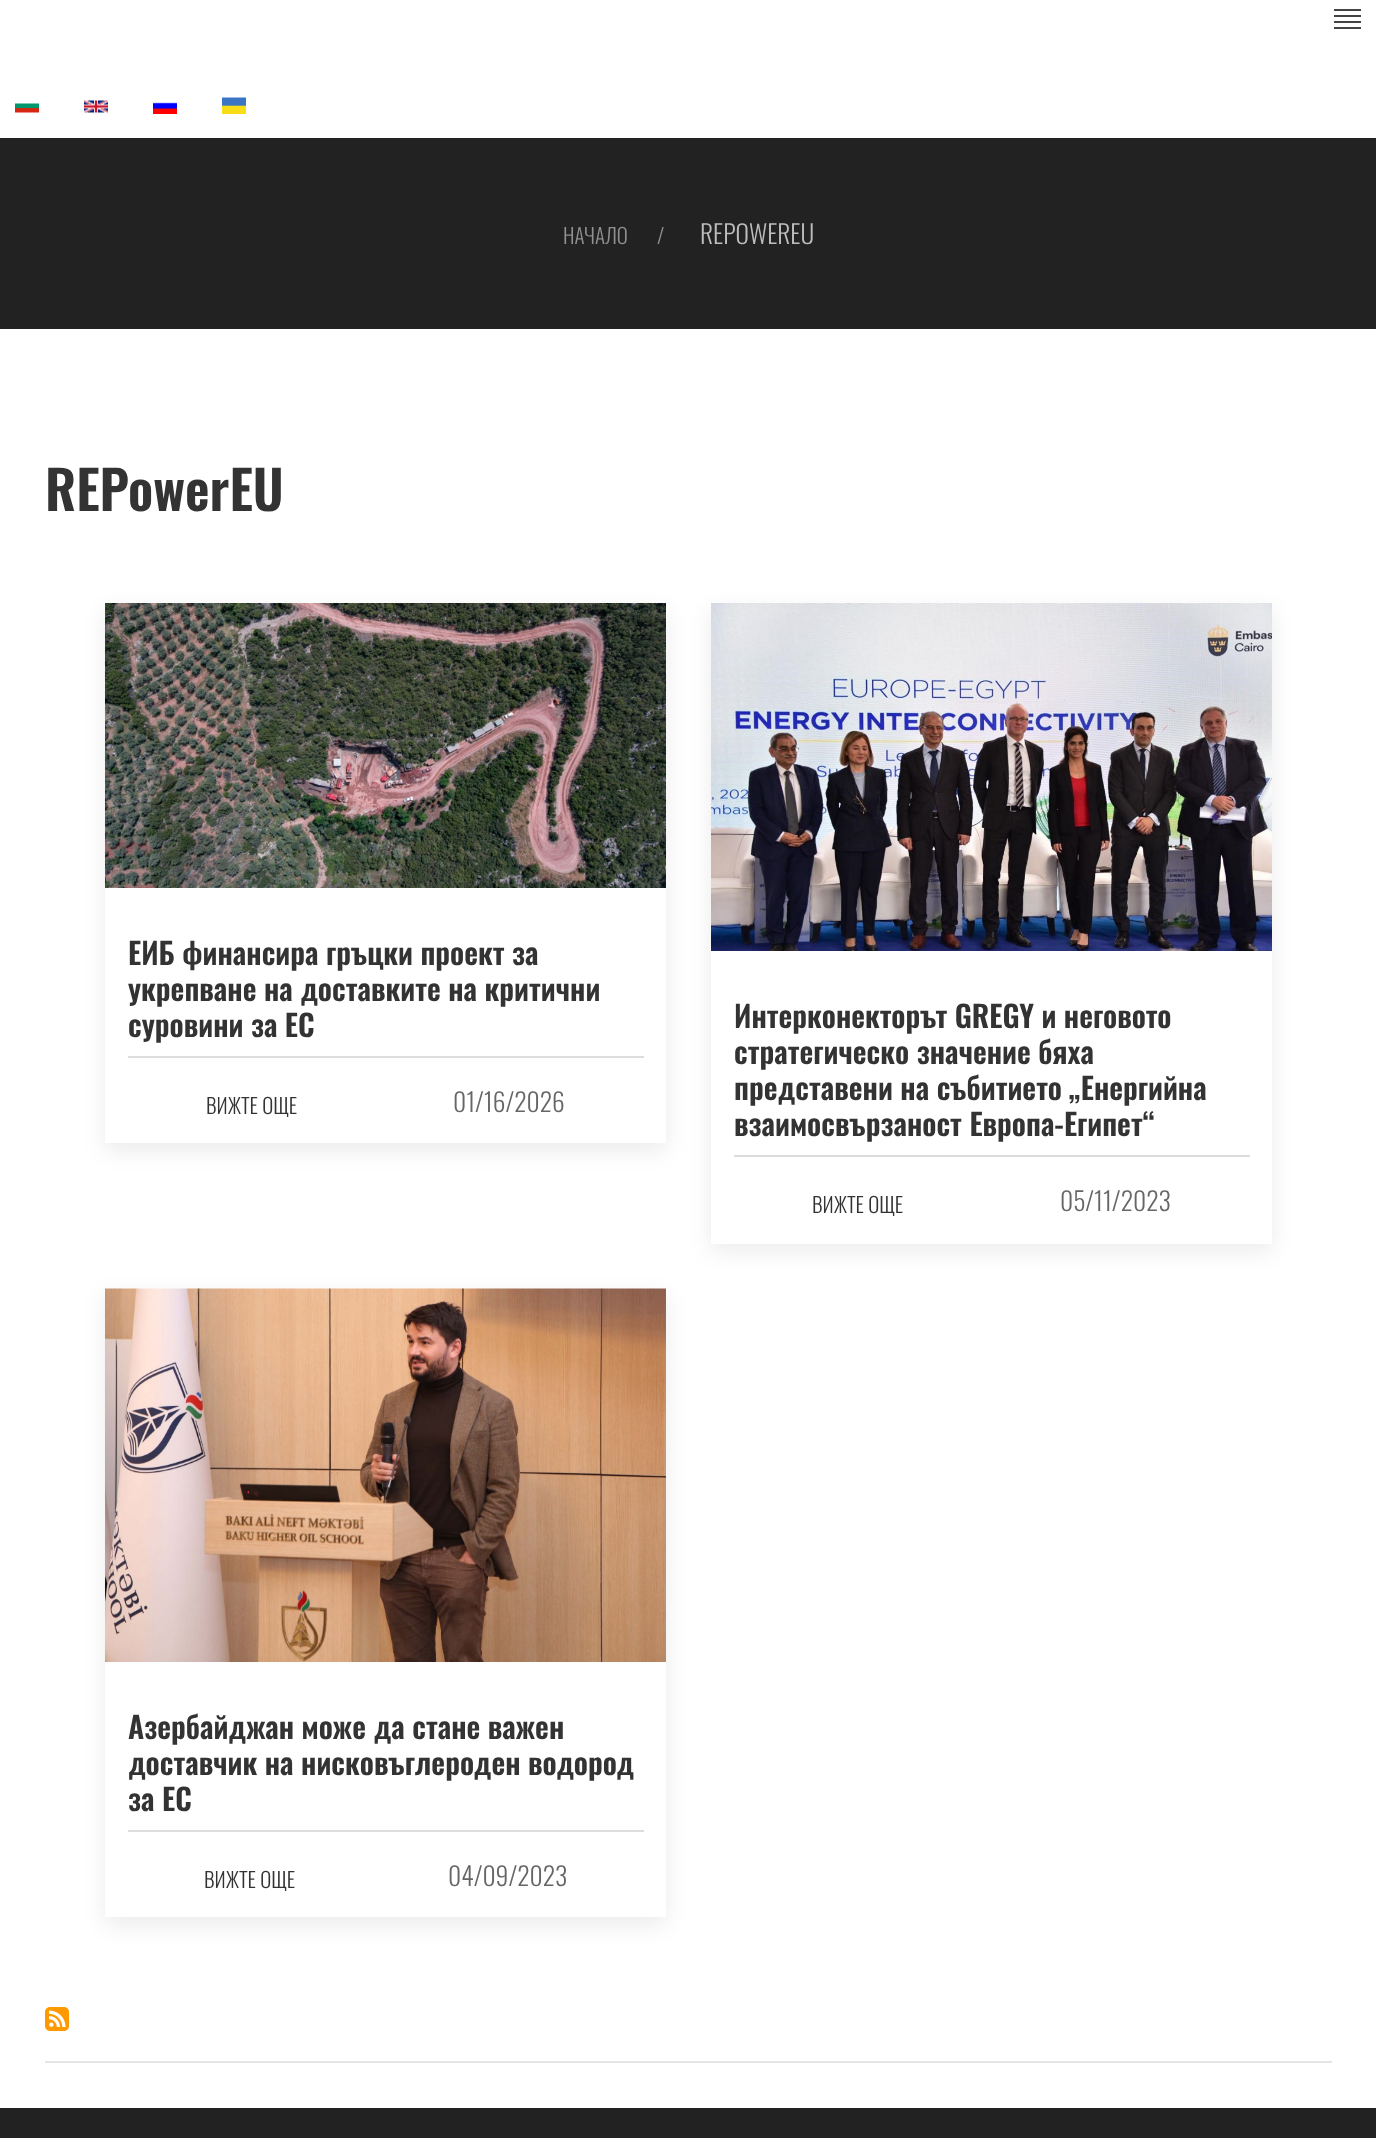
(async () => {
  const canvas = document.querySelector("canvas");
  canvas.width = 1376;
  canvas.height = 2138;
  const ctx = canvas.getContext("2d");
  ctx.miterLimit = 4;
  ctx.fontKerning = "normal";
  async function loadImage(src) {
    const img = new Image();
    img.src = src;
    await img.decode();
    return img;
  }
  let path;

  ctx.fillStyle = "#ffffff";
  ctx.fillRect(0, 0, 1376, 2138);
  for (const [x, y, w, h, color] of [
    [1334, 9, 27, 2, "#444444"],
    [1334, 15, 27, 2, "#444444"],
    [1334, 21, 27, 2, "#444444"],
    [1334, 27, 27, 2, "#444444"],
  ]) {
    ctx.fillStyle = color;
    ctx.fillRect(x, y, w, h);
  }
  ctx.drawImage(await loadImage("img/1.png"), 15, 103, 24, 10);
  ctx.drawImage(await loadImage("img/2.png"), 84, 100, 24, 13);
  ctx.drawImage(await loadImage("img/3.png"), 153, 102, 24, 12);
  ctx.drawImage(await loadImage("img/4.png"), 222, 97, 24, 17);
  ctx.fillStyle = "#222222";
  ctx.fillRect(0, 138, 1376, 191);
  ctx.save();
  path = new Path2D("M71 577H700V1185H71ZM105 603H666V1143H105Z");
  ctx.clip(path, "evenodd");
  ctx.fillStyle = "rgba(0, 0, 0, 0.08)";
  ctx.filter = "blur(11px)";
  ctx.beginPath();
  ctx.rect(105, 611, 561, 540);
  ctx.fill();
  ctx.filter = "none";
  ctx.restore();
  ctx.drawImage(await loadImage("img/5.png"), 105, 603, 561, 285);
  ctx.fillStyle = "#dddddd";
  ctx.fillRect(128, 1056, 516, 2);
  ctx.fillStyle = "rgba(0, 0, 0, 0.08)";
  ctx.filter = "blur(11px)";
  ctx.beginPath();
  ctx.rect(711, 611, 561, 640);
  ctx.fill();
  ctx.filter = "none";
  ctx.fillStyle = "#ffffff";
  ctx.fillRect(711, 951, 561, 293);
  ctx.drawImage(await loadImage("img/6.png"), 711, 603, 561, 348);
  ctx.fillStyle = "#dddddd";
  ctx.fillRect(734, 1155, 516, 2);
  ctx.save();
  path = new Path2D("M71 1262H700V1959H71ZM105 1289H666V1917H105Z");
  ctx.clip(path, "evenodd");
  ctx.fillStyle = "rgba(0, 0, 0, 0.08)";
  ctx.filter = "blur(11px)";
  ctx.beginPath();
  ctx.rect(105, 1296, 561, 629);
  ctx.fill();
  ctx.filter = "none";
  ctx.restore();
  ctx.drawImage(await loadImage("img/7.png"), 105, 1288, 561, 374);
  ctx.fillRect(128, 1830, 516, 2);
  ctx.drawImage(await loadImage("img/8.png"), 45, 2007, 24, 24);
  ctx.fillStyle = "#e5e5e5";
  ctx.fillRect(45, 2061, 1287, 2);
  ctx.fillStyle = "#222222";
  ctx.fillRect(0, 2108, 1376, 30);
  ctx.font = "300 21px Oswald";
  ctx.fillStyle = "#919191";
  ctx.fillText("НАЧАЛО", 563, 244);
  ctx.fillText("/", 657, 244);
  ctx.font = "300 25.5px Oswald";
  ctx.fillStyle = "#bdbdbd";
  ctx.fillText("REPOWEREU", 700, 244);
  ctx.font = "600 53.5px Oswald";
  ctx.fillStyle = "#333333";
  ctx.fillText("REPowerEU", 45, 511);
  ctx.font = "600 30px Oswald";
  for (const [text, x, y] of [
    ["ЕИБ финансира гръцки проект за", 128, 965],
    ["укрепване на доставките на критични", 128, 1001],
    ["суровини за ЕС", 128, 1037],
  ]) {
    ctx.fillText(text, x, y);
  }
  ctx.font = "300 21px Oswald";
  ctx.fillText("ВИЖТЕ ОЩЕ", 206, 1114);
  ctx.font = "300 25.5px Oswald";
  ctx.fillStyle = "#666666";
  ctx.fillText("01/16/2026", 453, 1112);
  ctx.font = "600 30px Oswald";
  ctx.fillStyle = "#333333";
  for (const [text, x, y] of [
    ["Интерконекторът GREGY и неговото", 734, 1028],
    ["стратегическо значение бяха", 734, 1064],
    ["представени на събитието „Енергийна", 734, 1100],
    ["взаимосвързаност Европа-Египет“", 734, 1136],
  ]) {
    ctx.fillText(text, x, y);
  }
  ctx.font = "300 21px Oswald";
  ctx.fillText("ВИЖТЕ ОЩЕ", 812, 1213);
  ctx.font = "300 25.5px Oswald";
  ctx.fillStyle = "#666666";
  ctx.fillText("05/11/2023", 1060, 1211);
  ctx.font = "600 30px Oswald";
  ctx.fillStyle = "#333333";
  for (const [text, x, y] of [
    ["Азербайджан може да стане важен", 128, 1739],
    ["доставчик на нисковъглероден водород", 128, 1775],
    ["за ЕС", 128, 1811],
  ]) {
    ctx.fillText(text, x, y);
  }
  ctx.font = "300 21px Oswald";
  ctx.fillText("ВИЖТЕ ОЩЕ", 204, 1888);
  ctx.font = "300 25.5px Oswald";
  ctx.fillStyle = "#666666";
  ctx.fillText("04/09/2023", 448, 1886);
})();
